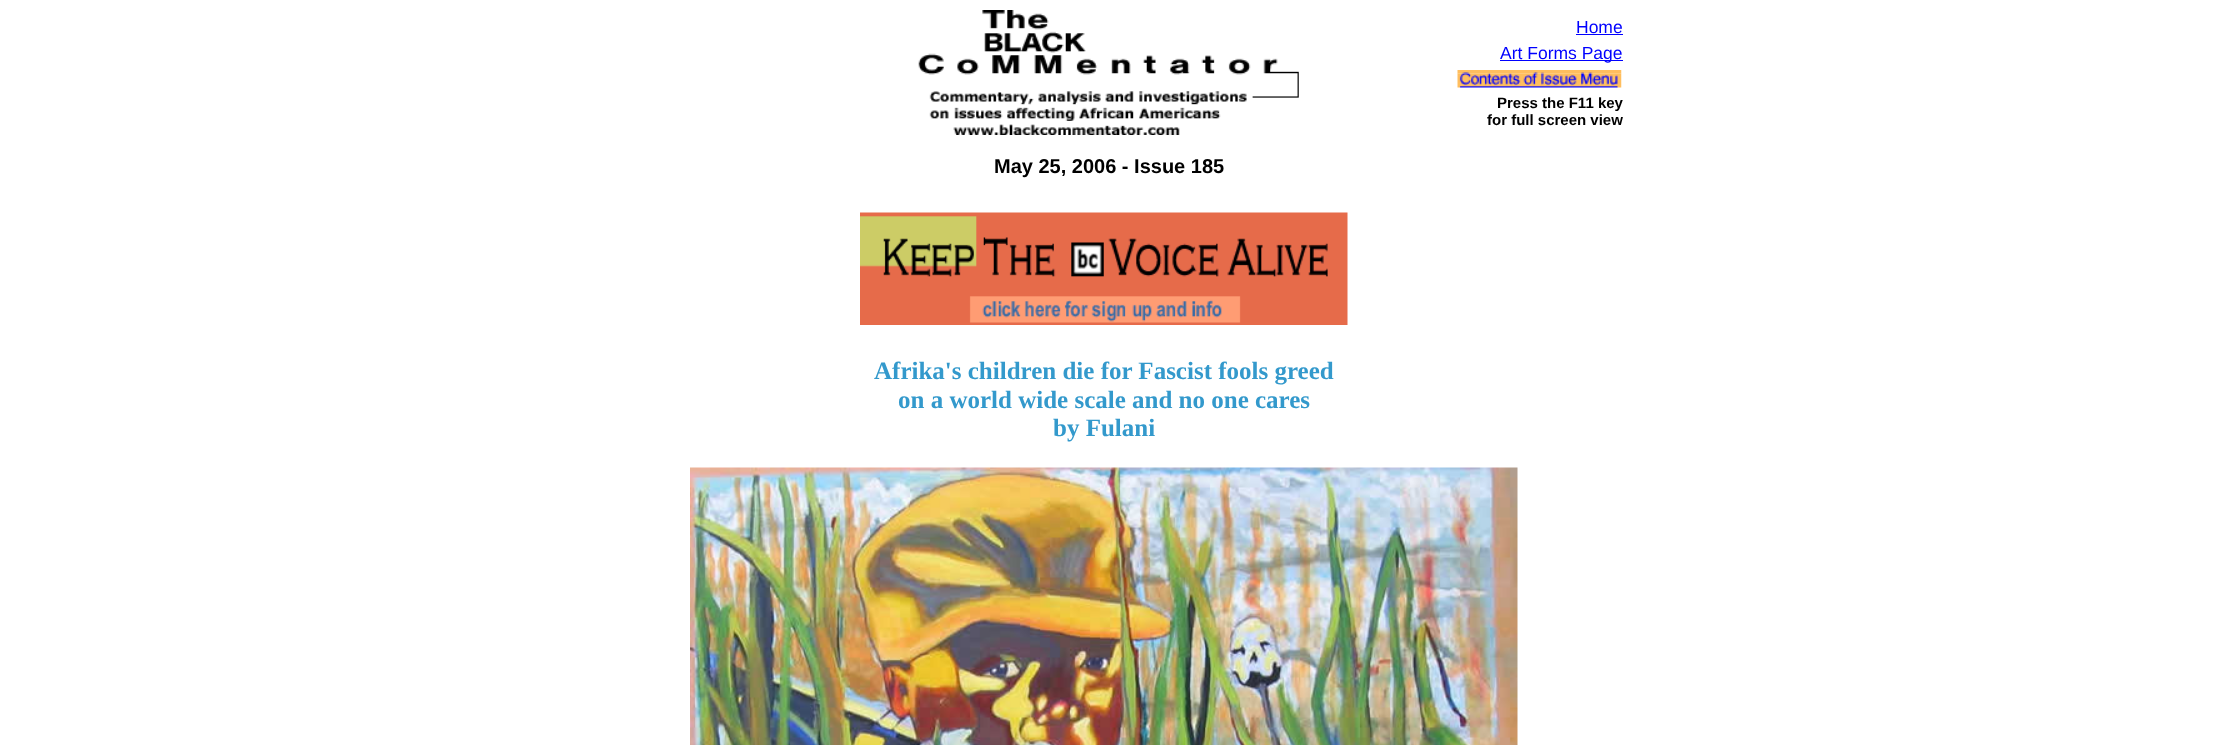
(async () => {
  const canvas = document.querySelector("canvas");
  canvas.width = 2218;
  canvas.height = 745;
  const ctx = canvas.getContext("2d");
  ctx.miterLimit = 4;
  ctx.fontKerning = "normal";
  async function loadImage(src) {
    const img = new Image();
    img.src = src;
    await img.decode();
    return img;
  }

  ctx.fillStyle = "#ffffff";
  ctx.fillRect(0, 0, 2218, 745);
  ctx.fillStyle = "#0000ff";
  ctx.fillRect(1576, 34, 47, 1);
  ctx.fillRect(1500, 60, 123, 1);
  ctx.drawImage(await loadImage("img/1.png"), 1457, 70, 165, 4);
  ctx.drawImage(await loadImage("img/2.png"), 1457, 73, 158, 15);
  ctx.drawImage(await loadImage("img/3.png"), 1615, 73, 7, 15);
  ctx.drawImage(await loadImage("img/4.png"), 918, 10, 381, 125);
  ctx.drawImage(await loadImage("img/5.png"), 860, 212, 488, 113);
  ctx.drawImage(await loadImage("img/6.png"), 690, 467, 828, 278);
  ctx.font = "17.5px Liberation Sans";
  ctx.fillText("Home", 1576, 33);
  ctx.fillText("Art Forms Page", 1500, 59);
  ctx.font = "bold 15px Liberation Sans";
  ctx.fillStyle = "#000000";
  ctx.fillText("Press the F11 key", 1497, 108);
  ctx.fillText("for full screen view", 1487, 125);
  ctx.font = "bold 20px Liberation Sans";
  ctx.fillText("May 25, 2006 - Issue 185", 994, 173);
  ctx.font = "bold 25px Liberation Serif";
  ctx.fillStyle = "#3399cc";
  for (const [text, x, y] of [
    ["Afrika's children die for Fascist fools greed", 874, 379],
    ["on a world wide scale and no one cares", 898, 408],
    ["by Fulani", 1053, 436],
  ]) {
    ctx.fillText(text, x, y);
  }
})();
